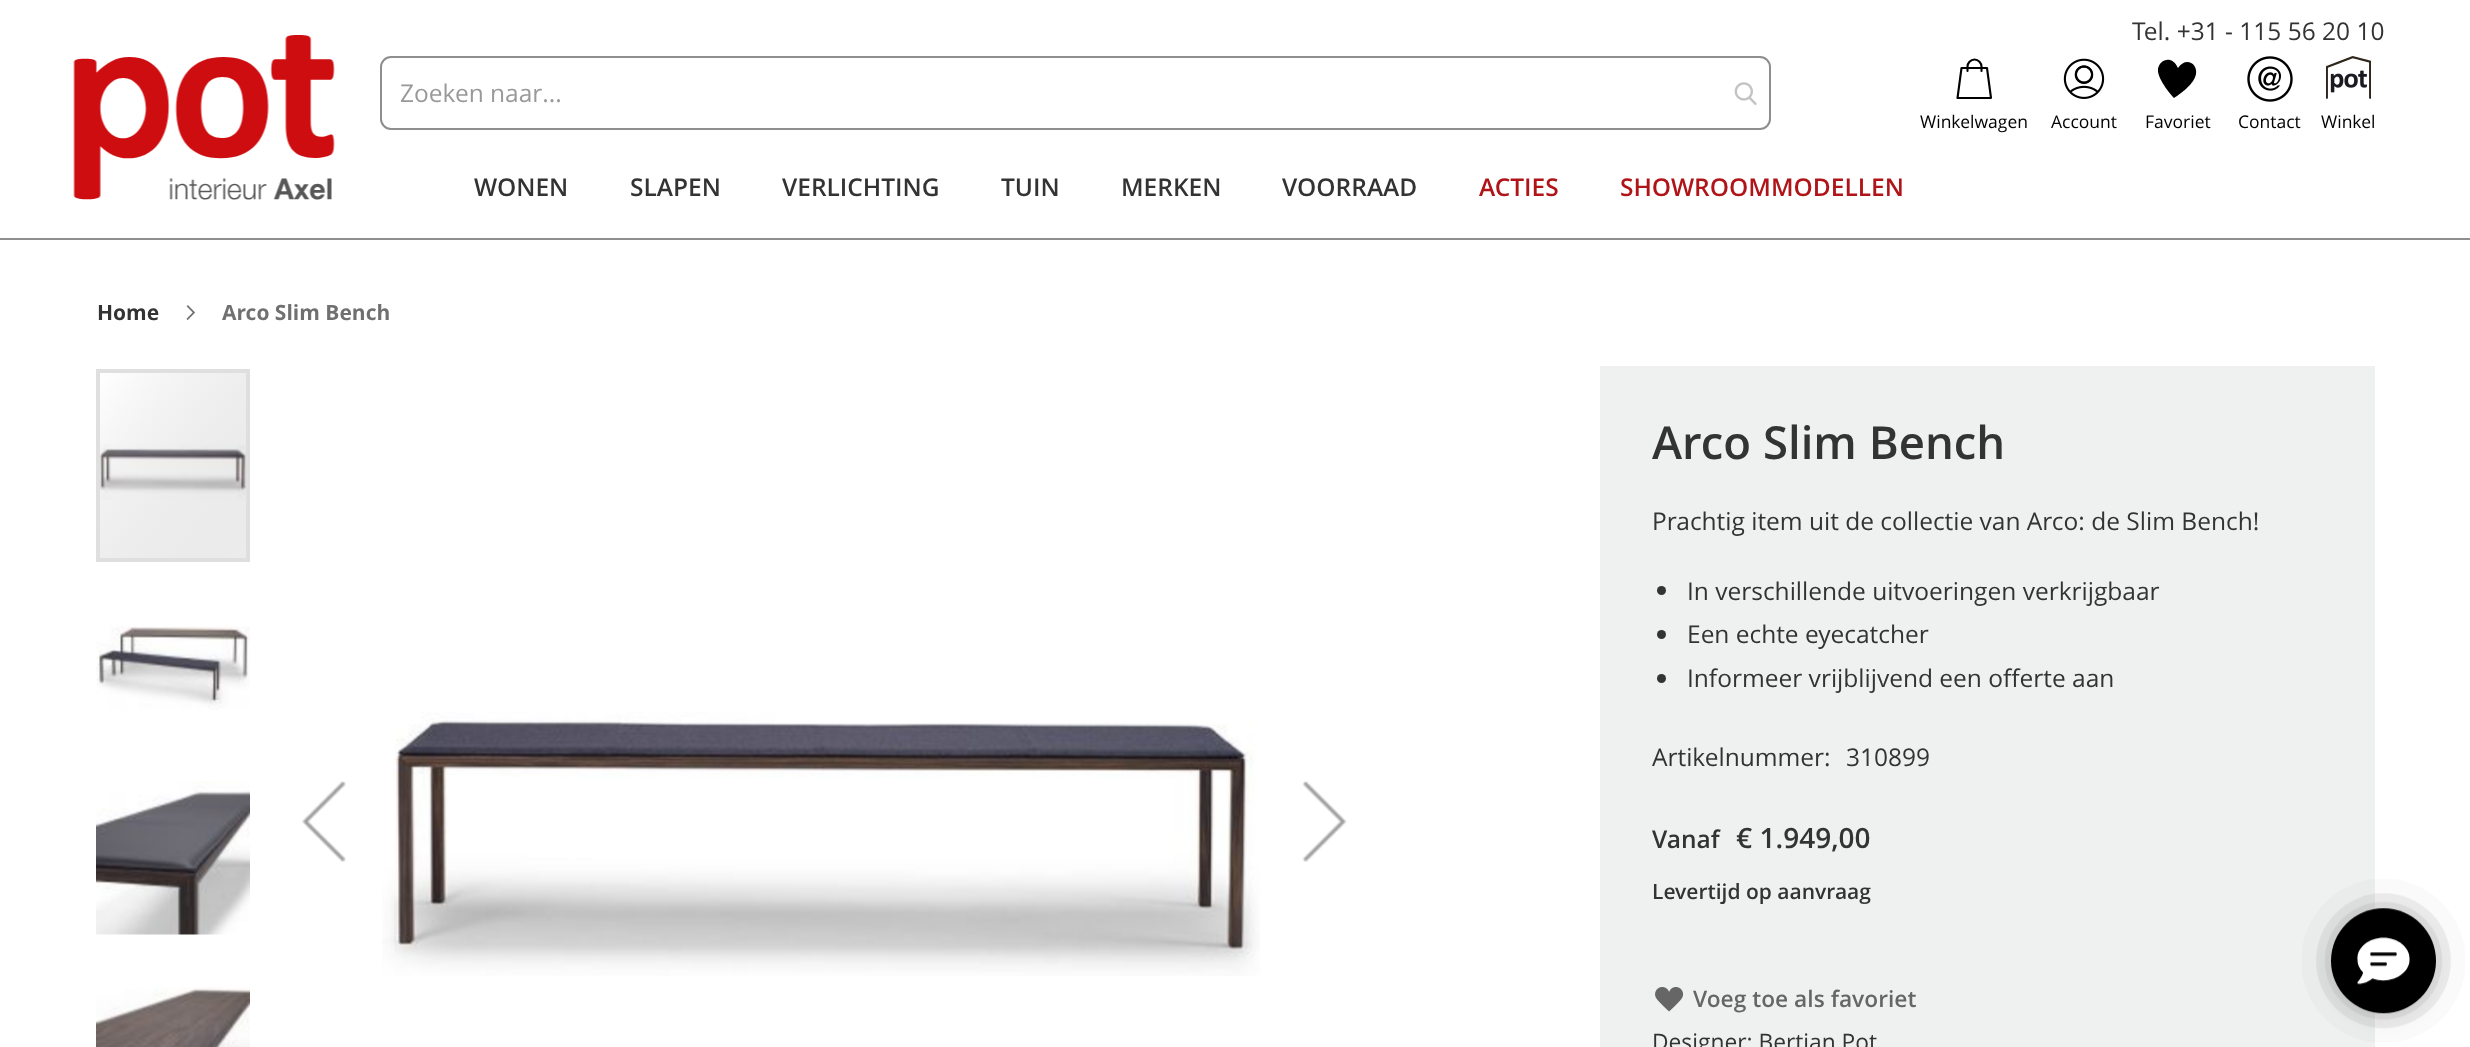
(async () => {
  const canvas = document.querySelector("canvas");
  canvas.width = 2470;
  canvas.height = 1047;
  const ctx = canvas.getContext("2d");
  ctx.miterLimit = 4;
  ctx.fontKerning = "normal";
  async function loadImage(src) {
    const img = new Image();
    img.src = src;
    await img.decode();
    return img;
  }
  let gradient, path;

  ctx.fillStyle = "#ffffff";
  ctx.fillRect(0, 0, 2470, 1047);
  ctx.fillStyle = "#8e8e8e";
  ctx.fillRect(0, 238, 2470, 2);
  ctx.drawImage(await loadImage("img/1.png"), 73, 35, 262, 165);
  ctx.beginPath();
  ctx.roundRect(381, 57, 1389, 72, 10);
  ctx.strokeStyle = "#8e8e8e";
  ctx.lineWidth = 2;
  ctx.stroke();
  ctx.drawImage(await loadImage("img/2.png"), 1734, 82, 23, 23);
  path = new Path2D("M1981.5 71V66.5C1981.5 63 1978.5 59.5 1974.5 59.5C1970.5 59.5 1967.5 63 1967.5 66.5V71");
  ctx.strokeStyle = "#000000";
  ctx.lineWidth = 2.1;
  ctx.lineCap = "round";
  ctx.stroke(path);
  path = new Path2D("M1991 98H1957.5L1961.5 68H1987Z");
  ctx.lineJoin = "round";
  ctx.stroke(path);
  ctx.drawImage(await loadImage("img/3.png"), 2063, 58, 42, 41);
  ctx.fillStyle = "#000000";
  path = new Path2D("M2174 98C2174 98 2157 80 2158 69C2159 60 2172 54 2178 68C2186 56 2198 64 2196 74C2194 86 2174 98 2174 98");
  ctx.fill(path);
  ctx.drawImage(await loadImage("img/4.png"), 2247, 56, 46, 46);
  ctx.drawImage(await loadImage("img/5.png"), 2326, 56, 45, 43);
  ctx.drawImage(await loadImage("img/6.png"), 186, 305, 9, 15);
  ctx.drawImage(await loadImage("img/7.png"), 100, 444, 146, 56);
  gradient = ctx.createLinearGradient(83, 394, 264, 537);
  gradient.addColorStop(0, "rgba(255, 255, 255, 0.25)");
  gradient.addColorStop(1, "rgba(64, 64, 64, 0.1)");
  ctx.fillStyle = gradient;
  ctx.fillRect(100, 373, 146, 185);
  ctx.strokeStyle = "#dfdfdf";
  ctx.lineWidth = 4;
  ctx.lineJoin = "miter";
  ctx.strokeRect(98, 371, 150, 189);
  ctx.drawImage(await loadImage("img/8.png"), 96, 626, 154, 84);
  ctx.drawImage(await loadImage("img/9.png"), 96, 781, 154, 154);
  ctx.drawImage(await loadImage("img/10.png"), 96, 987, 154, 60);
  ctx.drawImage(await loadImage("img/12.png"), 382, 712, 878, 264);
  ctx.fillStyle = "rgba(255, 255, 255, 0.3)";
  ctx.fillRect(387, 894, 7, 59);
  ctx.drawImage(await loadImage("img/11.png"), 302, 781, 44, 81);
  ctx.drawImage(await loadImage("img/13.png"), 1302, 781, 45, 81);
  ctx.fillStyle = "#eff1f0";
  ctx.fillRect(1600, 366, 775, 681);
  ctx.fillStyle = "#333333";
  ctx.beginPath();
  ctx.arc(1661.5, 590.5, 4.5, 0, Math.PI * 2);
  ctx.fill();
  ctx.beginPath();
  ctx.arc(1661.5, 634.5, 4.5, 0, Math.PI * 2);
  ctx.fill();
  ctx.beginPath();
  ctx.arc(1661.5, 678.5, 4.5, 0, Math.PI * 2);
  ctx.fill();
  ctx.drawImage(await loadImage("img/14.png"), 1655, 987, 29, 25);
  ctx.drawImage(await loadImage("img/15.png"), 2302, 879, 163, 163);
  ctx.font = "24.5px Open Sans";
  ctx.fillText("Tel. +31 - 115 56 20 10", 2132, 40);
  ctx.fillStyle = "#999999";
  ctx.fillText("Zoeken naar...", 400, 102);
  ctx.font = "17.5px Open Sans";
  ctx.fillStyle = "#000000";
  for (const [text, x, y] of [
    ["Winkelwagen", 1920, 128],
    ["Account", 2051, 128],
    ["Favoriet", 2145, 128],
    ["Contact", 2238, 128],
    ["Winkel", 2321, 128],
  ]) {
    ctx.fillText(text, x, y);
  }
  ctx.font = "600 24.5px Open Sans";
  ctx.fillStyle = "#333333";
  for (const [text, x, y] of [
    ["WONEN", 474, 196],
    ["SLAPEN", 630, 196],
    ["VERLICHTING", 782, 196],
    ["TUIN", 1001, 196],
    ["MERKEN", 1121, 196],
    ["VOORRAAD", 1282, 196],
  ]) {
    ctx.fillText(text, x, y);
  }
  ctx.fillStyle = "#b01418";
  ctx.fillText("ACTIES", 1479, 196);
  ctx.fillText("SHOWROOMMODELLEN", 1620, 196);
  ctx.font = "bold 21px Open Sans";
  ctx.fillStyle = "#333333";
  ctx.fillText("Home", 97, 320);
  ctx.fillStyle = "#707070";
  ctx.fillText("Arco Slim Bench", 222, 320);
  ctx.font = "600 45.5px Open Sans";
  ctx.fillStyle = "#333333";
  ctx.fillText("Arco Slim Bench", 1652, 459);
  ctx.font = "24.5px Open Sans";
  for (const [text, x, y] of [
    ["Prachtig item uit de collectie van Arco: de Slim Bench!", 1652, 530],
    ["In verschillende uitvoeringen verkrijgbaar", 1687, 600],
    ["Een echte eyecatcher", 1687, 643],
    ["Informeer vrijblijvend een offerte aan", 1687, 687],
    ["Artikelnummer:", 1652, 766],
    ["310899", 1846, 766],
  ]) {
    ctx.fillText(text, x, y);
  }
  ctx.font = "600 24.5px Open Sans";
  ctx.fillText("Vanaf", 1652, 848);
  ctx.font = "600 28px Open Sans";
  ctx.fillText("€ 1.949,00", 1736, 848);
  ctx.font = "600 21px Open Sans";
  ctx.fillText("Levertijd op aanvraag", 1652, 899);
  ctx.font = "600 22.75px Open Sans";
  ctx.fillStyle = "#666666";
  ctx.fillText("Voeg toe als favoriet", 1693, 1007);
  ctx.font = "22.75px Open Sans";
  ctx.fillStyle = "#333333";
  ctx.fillText("Designer: Bertjan Pot", 1652, 1050);
})();
